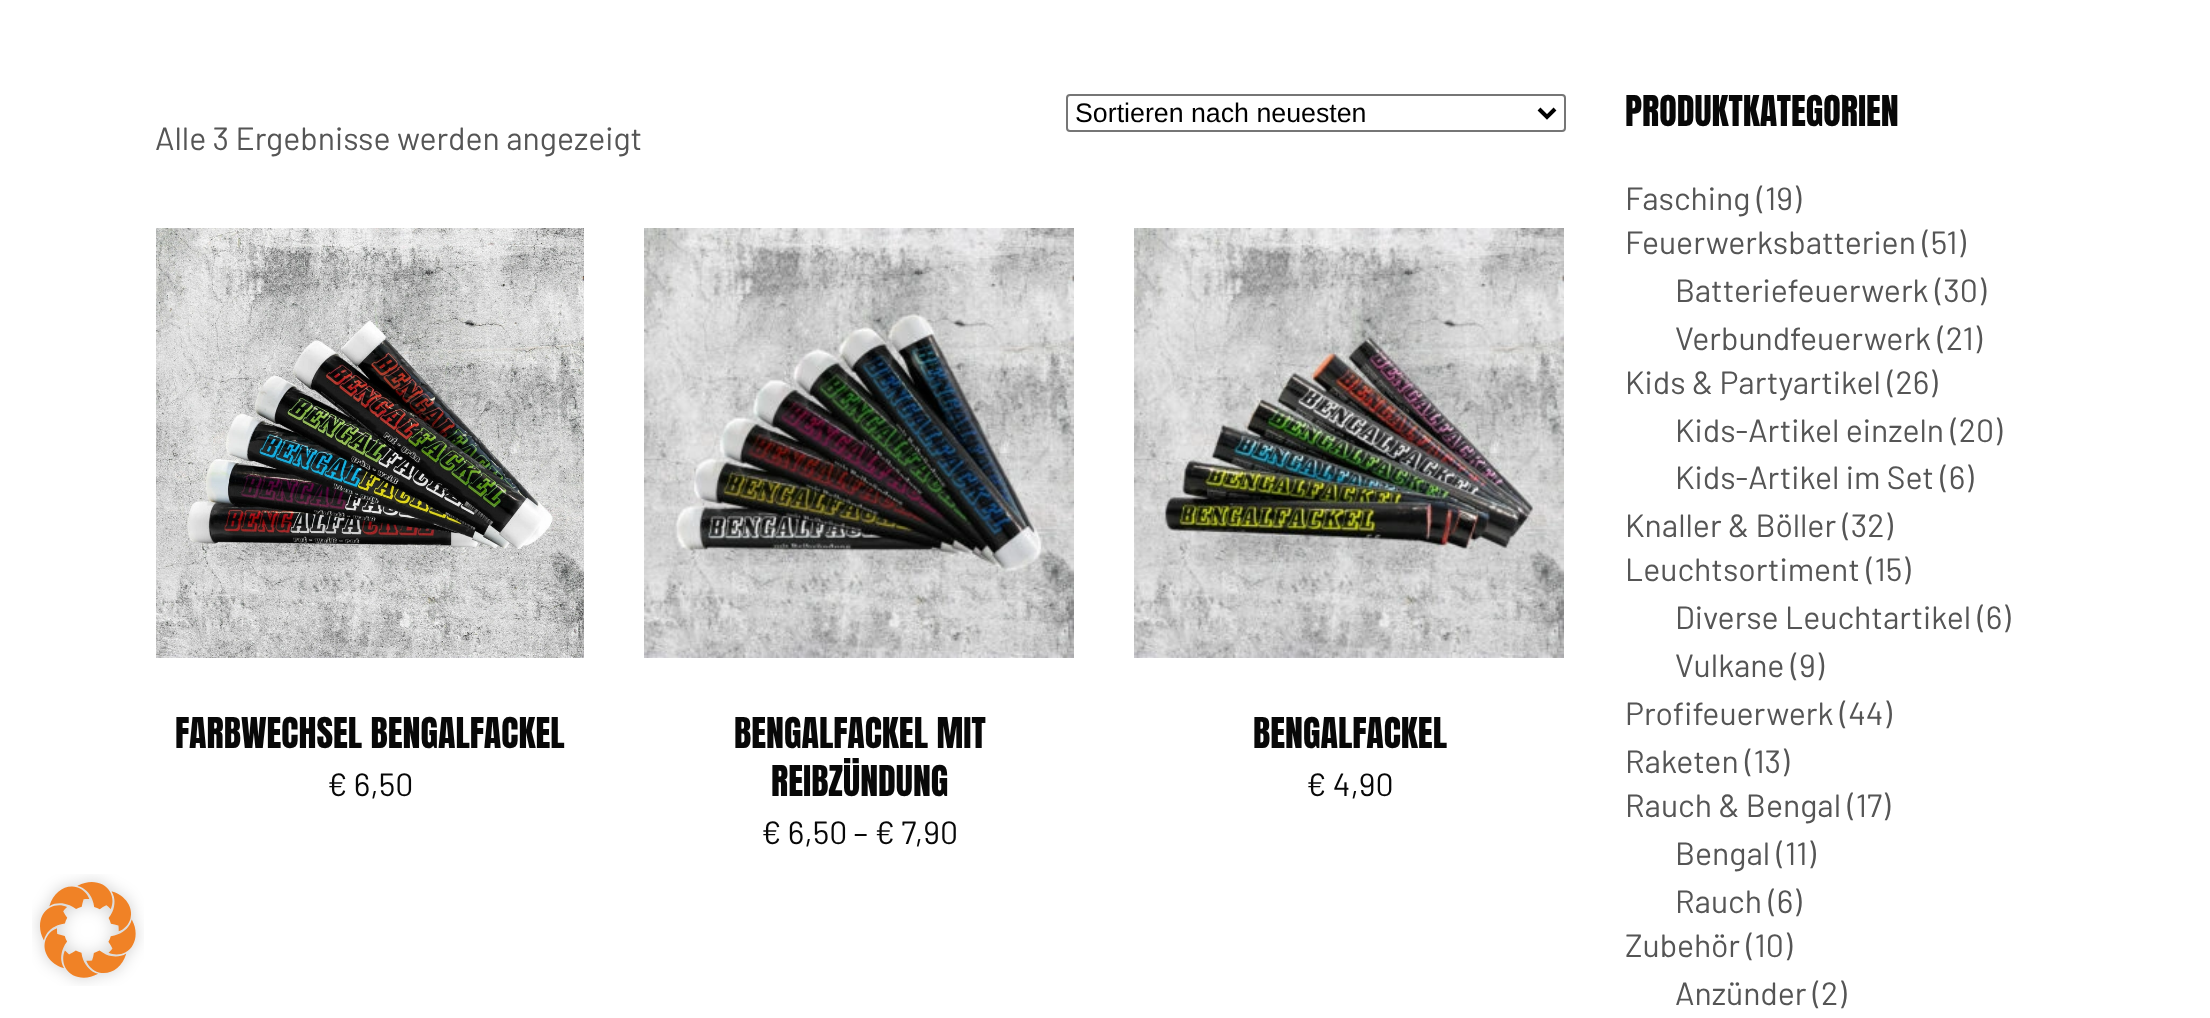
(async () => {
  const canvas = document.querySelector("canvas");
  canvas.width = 2210;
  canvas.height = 1018;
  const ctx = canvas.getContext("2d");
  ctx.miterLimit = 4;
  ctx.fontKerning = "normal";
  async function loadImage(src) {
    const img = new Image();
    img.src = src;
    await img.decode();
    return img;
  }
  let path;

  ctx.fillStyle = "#ffffff";
  ctx.fillRect(0, 0, 2210, 1018);
  ctx.drawImage(await loadImage("img/1.png"), 32, 874, 112, 112);
  ctx.beginPath();
  ctx.roundRect(1067, 95, 498, 36, 3);
  ctx.strokeStyle = "#767676";
  ctx.lineWidth = 2;
  ctx.stroke();
  path = new Path2D("M1539 109L1547 117L1555 109");
  ctx.strokeStyle = "#000000";
  ctx.lineWidth = 4;
  ctx.stroke(path);
  ctx.drawImage(await loadImage("img/2.png"), 156, 228, 428, 430);
  ctx.drawImage(await loadImage("img/3.png"), 644, 228, 430, 430);
  ctx.drawImage(await loadImage("img/4.png"), 1134, 228, 430, 430);
  ctx.font = "26.75px Liberation Sans";
  ctx.fillStyle = "#000000";
  ctx.fillText("Sortieren nach neuesten", 1075, 122);
  ctx.font = "32px Barlow";
  ctx.fillStyle = "#555555";
  ctx.fillText("Alle 3 Ergebnisse werden angezeigt", 155, 150);
  ctx.font = "36px Anton";
  ctx.fillStyle = "#080808";
  ctx.fillText("FARBWECHSEL BENGALFACKEL", 175, 748);
  ctx.font = "32px Barlow";
  ctx.fillText("€ 6,50", 327, 796);
  ctx.font = "36px Anton";
  ctx.fillText("BENGALFACKEL MIT", 734, 748);
  ctx.fillText("REIBZÜNDUNG", 771, 796);
  ctx.font = "32px Barlow";
  ctx.fillText("€ 6,50 – € 7,90", 761, 844);
  ctx.font = "36px Anton";
  ctx.fillText("BENGALFACKEL", 1253, 748);
  ctx.font = "32px Barlow";
  ctx.fillText("€ 4,90", 1306, 796);
  ctx.font = "36px Anton";
  ctx.fillText("PRODUKTKATEGORIEN", 1625, 126);
  ctx.font = "32px Barlow";
  ctx.fillStyle = "#555555";
  for (const [text, x, y] of [
    ["Fasching (19)", 1625, 210],
    ["Feuerwerksbatterien (51)", 1625, 254],
    ["Batteriefeuerwerk (30)", 1675, 302],
    ["Verbundfeuerwerk (21)", 1675, 350],
    ["Kids & Partyartikel (26)", 1625, 394],
    ["Kids-Artikel einzeln (20)", 1675, 442],
    ["Kids-Artikel im Set (6)", 1675, 489],
    ["Knaller & Böller (32)", 1625, 537],
    ["Leuchtsortiment (15)", 1625, 581],
    ["Diverse Leuchtartikel (6)", 1675, 629],
    ["Vulkane (9)", 1675, 677],
    ["Profifeuerwerk (44)", 1625, 725],
    ["Raketen (13)", 1625, 773],
    ["Rauch & Bengal (17)", 1625, 817],
    ["Bengal (11)", 1675, 865],
    ["Rauch (6)", 1675, 913],
    ["Zubehör (10)", 1625, 957],
    ["Anzünder (2)", 1675, 1005],
  ]) {
    ctx.fillText(text, x, y);
  }
})();
